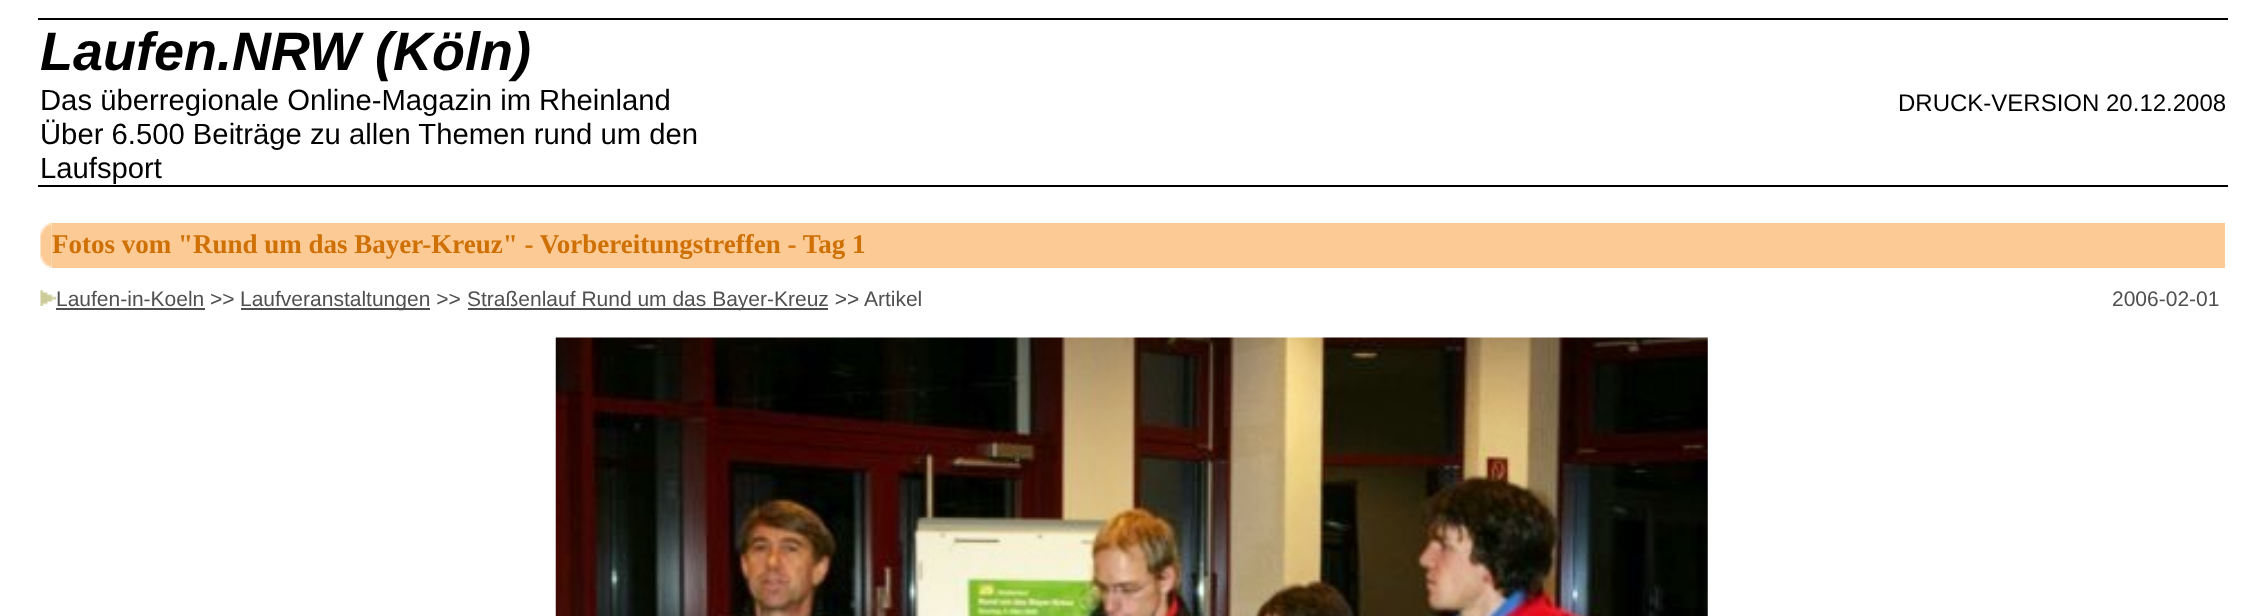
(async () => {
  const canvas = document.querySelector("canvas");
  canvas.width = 2265;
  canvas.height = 616;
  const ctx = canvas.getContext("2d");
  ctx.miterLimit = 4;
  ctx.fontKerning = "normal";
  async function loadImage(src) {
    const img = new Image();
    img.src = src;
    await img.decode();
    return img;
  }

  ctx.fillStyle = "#ffffff";
  ctx.fillRect(0, 0, 2265, 616);
  ctx.fillStyle = "#000000";
  ctx.fillRect(38, 18, 2190, 2);
  ctx.fillRect(38, 185, 2190, 2);
  ctx.drawImage(await loadImage("img/1.png"), 40, 222, 12, 46);
  ctx.fillStyle = "#fcca94";
  ctx.fillRect(52, 223, 2173, 45);
  ctx.drawImage(await loadImage("img/2.png"), 40, 290, 17, 16);
  for (const [x, y, w, h, color] of [
    [56, 308, 149, 2, "#505050"],
    [241, 308, 189, 2, "#505050"],
    [468, 308, 360, 2, "#505050"],
  ]) {
    ctx.fillStyle = color;
    ctx.fillRect(x, y, w, h);
  }
  ctx.drawImage(await loadImage("img/3.png"), 555, 337, 1153, 279);
  ctx.font = "italic bold 54px Liberation Sans";
  ctx.fillStyle = "#000000";
  ctx.fillText("Laufen.NRW (Köln)", 40, 70);
  ctx.font = "29.25px Liberation Sans";
  for (const [text, x, y] of [
    ["Das überregionale Online-Magazin im Rheinland", 40, 110],
    ["Über 6.500 Beiträge zu allen Themen rund um den", 40, 144],
    ["Laufsport", 40, 178],
  ]) {
    ctx.fillText(text, x, y);
  }
  ctx.font = "24px Liberation Sans";
  ctx.fillText("DRUCK-VERSION 20.12.2008", 1898, 111);
  ctx.font = "bold 27px Liberation Serif";
  ctx.fillStyle = "#cf7005";
  ctx.fillText("Fotos vom \"Rund um das Bayer-Kreuz\" - Vorbereitungstreffen - Tag 1", 52, 253);
  ctx.font = "21px Liberation Sans";
  ctx.fillStyle = "#505050";
  for (const [text, x, y] of [
    ["Laufen-in-Koeln >>", 56, 306],
    ["Laufveranstaltungen >>", 240, 306],
    ["Straßenlauf Rund um das Bayer-Kreuz >> Artikel", 467, 306],
    ["2006-02-01", 2112, 306],
  ]) {
    ctx.fillText(text, x, y);
  }
})();
